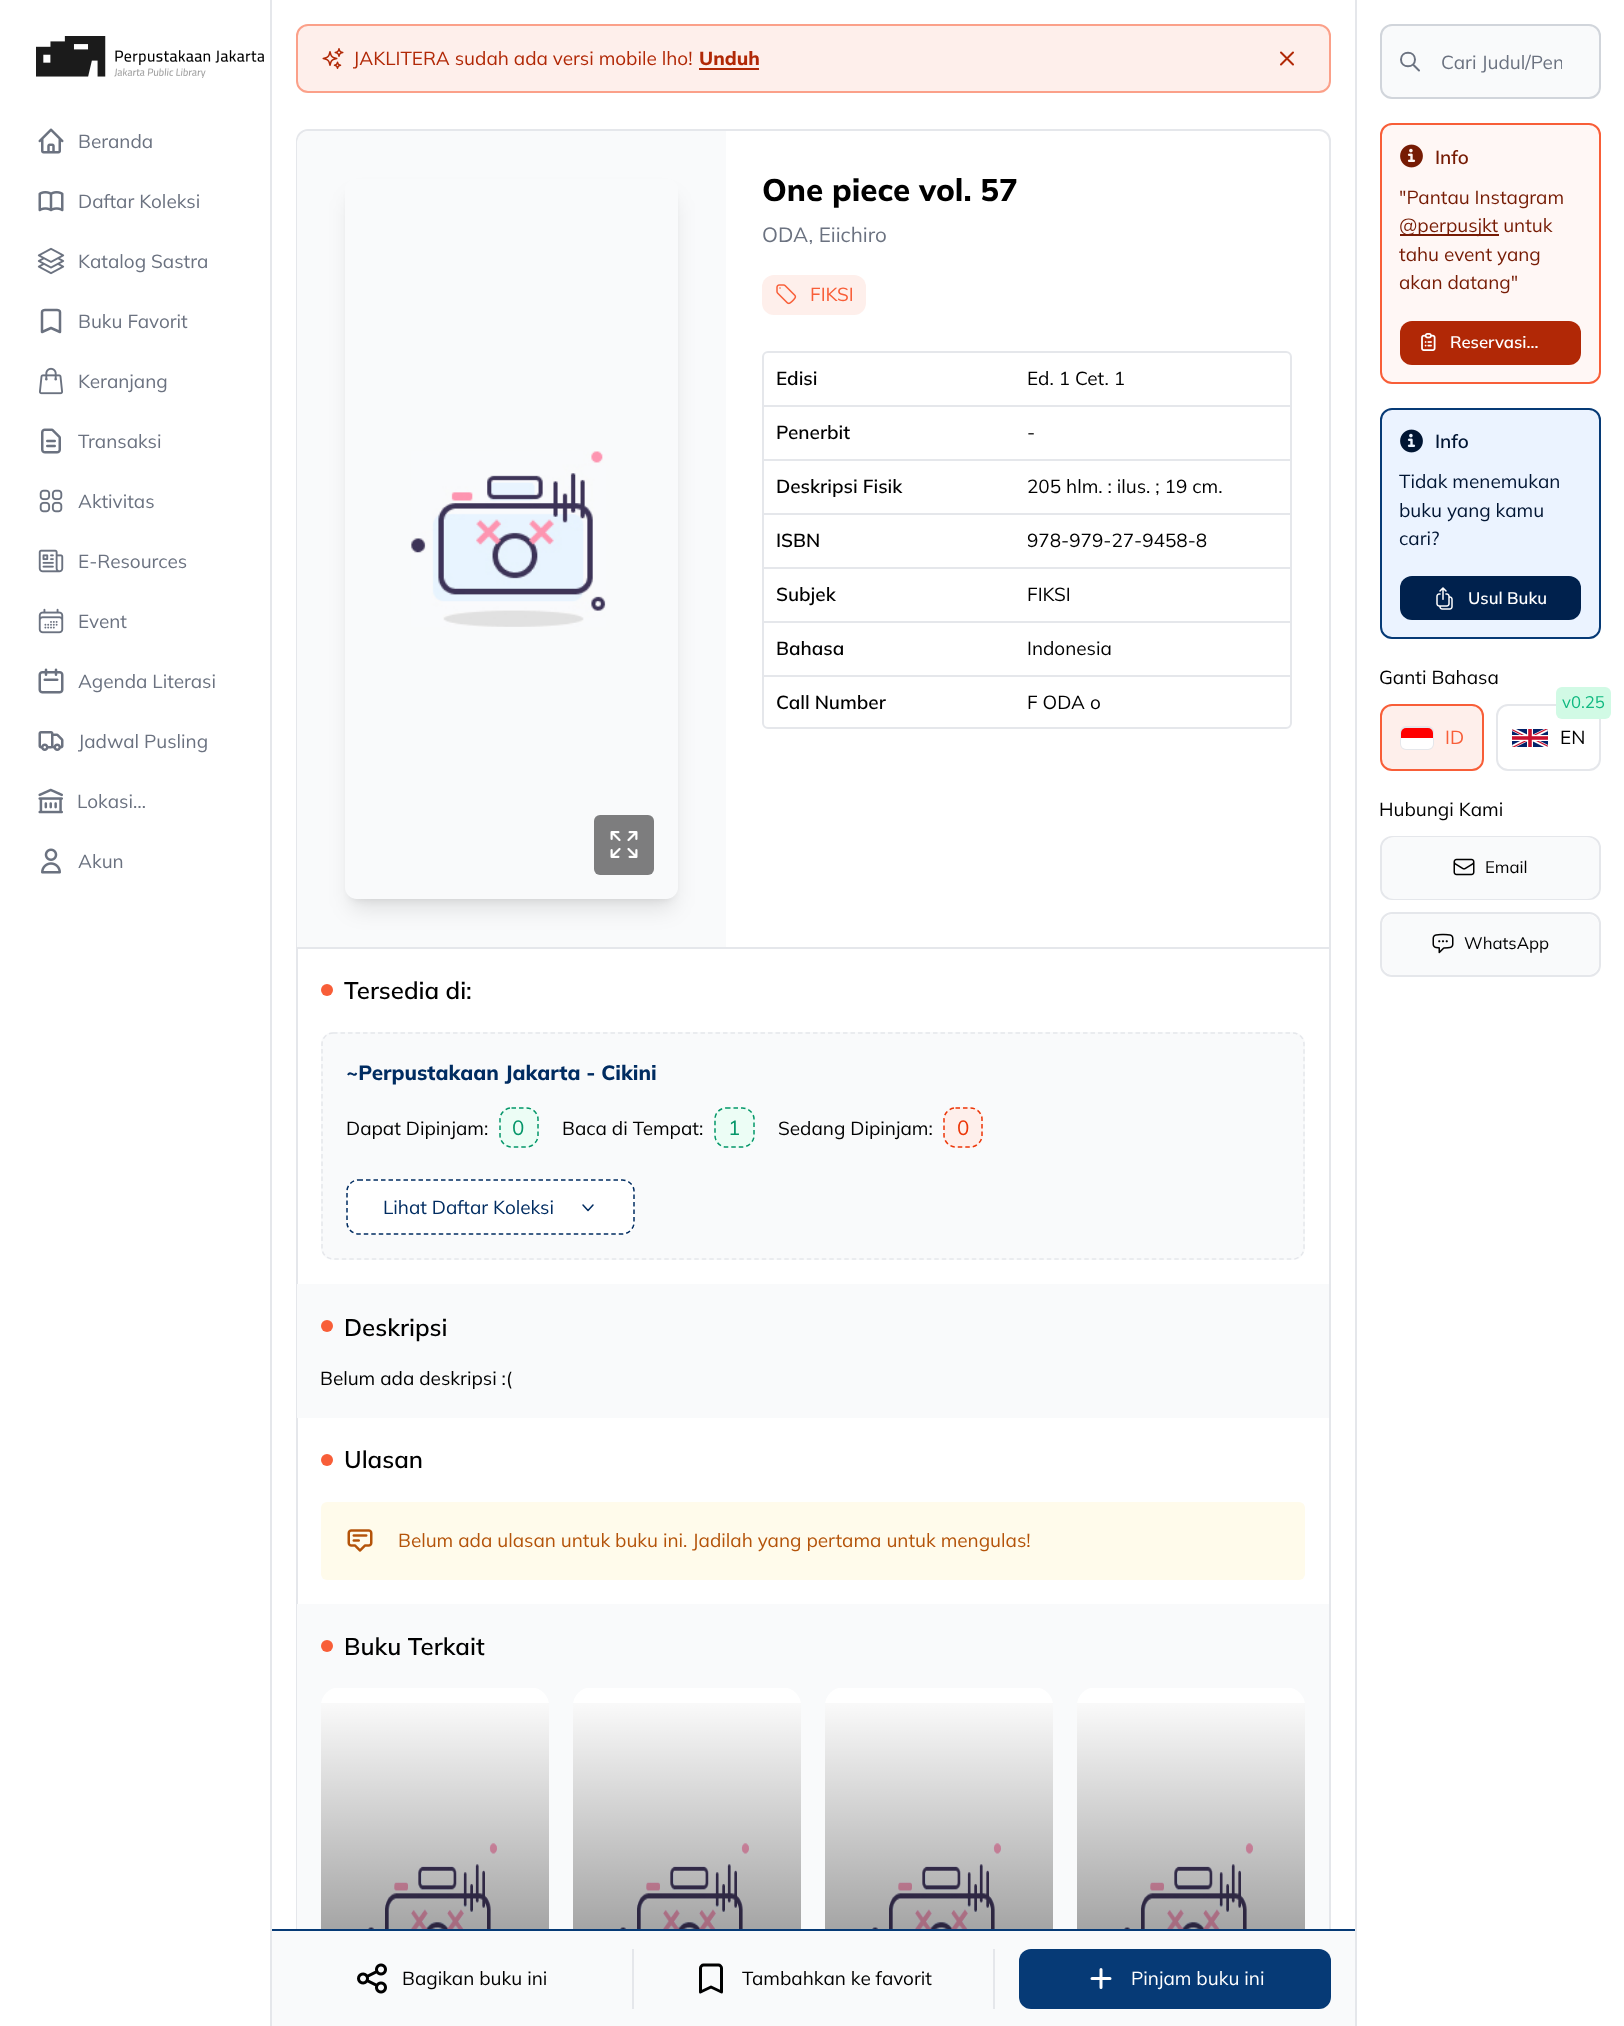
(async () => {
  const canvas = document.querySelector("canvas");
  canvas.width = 1624;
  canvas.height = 2026;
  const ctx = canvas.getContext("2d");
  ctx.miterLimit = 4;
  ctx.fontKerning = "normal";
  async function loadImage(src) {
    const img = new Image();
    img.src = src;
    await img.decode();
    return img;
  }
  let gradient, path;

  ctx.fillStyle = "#ffffff";
  ctx.fillRect(0, 0, 1624, 2026);
  ctx.fillStyle = "#e5e7eb";
  ctx.fillRect(270, 0, 2, 2026);
  ctx.drawImage(await loadImage("img/1.png"), 36, 36, 228, 42);
  ctx.drawImage(await loadImage("img/2.png"), 38, 128, 26, 26);
  ctx.drawImage(await loadImage("img/3.png"), 38, 191, 26, 21);
  ctx.drawImage(await loadImage("img/4.png"), 37, 247, 28, 28);
  path = new Path2D("M42 312C42 311 43.5 310 45 310H57C58.5 310 60 311 60 312V332L51 328L42 332Z");
  ctx.strokeStyle = "#6b7280";
  ctx.lineWidth = 2.5;
  ctx.lineCap = "round";
  ctx.lineJoin = "round";
  ctx.stroke(path);
  ctx.drawImage(await loadImage("img/5.png"), 39, 367, 24, 28);
  ctx.drawImage(await loadImage("img/6.png"), 41, 428, 20, 26);
  ctx.drawImage(await loadImage("img/7.png"), 39, 489, 24, 24);
  ctx.drawImage(await loadImage("img/8.png"), 38, 549, 26, 24);
  ctx.drawImage(await loadImage("img/9.png"), 38, 608, 26, 26);
  ctx.drawImage(await loadImage("img/10.png"), 38, 668, 26, 26);
  ctx.drawImage(await loadImage("img/11.png"), 38, 731, 26, 20);
  ctx.drawImage(await loadImage("img/12.png"), 38, 788, 25, 26);
  ctx.drawImage(await loadImage("img/13.png"), 41, 848, 20, 26);
  ctx.fillStyle = "#feefeb";
  ctx.beginPath();
  ctx.roundRect(297, 25, 1033, 67, 11);
  ctx.fill();
  ctx.strokeStyle = "#fba089";
  ctx.lineWidth = 2;
  ctx.lineJoin = "miter";
  ctx.stroke();
  ctx.drawImage(await loadImage("img/14.png"), 322, 48, 22, 21);
  ctx.fillStyle = "#b12806";
  ctx.fillRect(699, 68, 60, 2);
  path = new Path2D("M1281 64.5L1293 52.5M1281 52.5L1293 64.5");
  ctx.strokeStyle = "#b12806";
  ctx.lineJoin = "round";
  ctx.stroke(path);
  ctx.beginPath();
  ctx.roundRect(297, 130, 1033, 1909, 11);
  ctx.strokeStyle = "#e5e7eb";
  ctx.lineJoin = "miter";
  ctx.stroke();
  ctx.fillStyle = "#e5e7eb";
  ctx.fillRect(297, 947, 1032, 2);
  ctx.fillStyle = "#f9fafb";
  ctx.beginPath();
  ctx.roundRect(297, 131, 429, 816, [12, 0, 0, 0]);
  ctx.fill();
  ctx.save();
  path = new Path2D("M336 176H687V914H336ZM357 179H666C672.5 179 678 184.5 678 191V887C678 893.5 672.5 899 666 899H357C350.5 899 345 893.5 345 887V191C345 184.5 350.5 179 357 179Z");
  ctx.clip(path, "evenodd");
  ctx.fillStyle = "rgba(0, 0, 0, 0.1)";
  ctx.filter = "blur(4.5px)";
  ctx.beginPath();
  ctx.roundRect(351, 191, 321, 708, 6);
  ctx.fill();
  ctx.filter = "none";
  ctx.restore();
  ctx.save();
  path = new Path2D("M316 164H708V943H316ZM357 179H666C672.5 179 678 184.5 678 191V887C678 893.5 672.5 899 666 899H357C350.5 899 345 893.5 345 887V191C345 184.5 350.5 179 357 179Z");
  ctx.clip(path, "evenodd");
  ctx.fillStyle = "rgba(0, 0, 0, 0.1)";
  ctx.filter = "blur(11px)";
  ctx.beginPath();
  ctx.roundRect(350, 198, 324, 711, 8);
  ctx.fill();
  ctx.filter = "none";
  ctx.restore();
  ctx.drawImage(await loadImage("img/15.png"), 411, 451, 195, 176);
  ctx.fillStyle = "#7d7d7e";
  ctx.beginPath();
  ctx.roundRect(594, 815, 60, 60, 6);
  ctx.fill();
  ctx.drawImage(await loadImage("img/16.png"), 610, 831, 28, 27);
  ctx.fillStyle = "#feefeb";
  ctx.beginPath();
  ctx.roundRect(762, 275, 104, 40, 12);
  ctx.fill();
  ctx.drawImage(await loadImage("img/17.png"), 776, 284, 21, 21);
  ctx.beginPath();
  ctx.roundRect(763, 352, 528, 376, 5);
  ctx.stroke();
  for (const [x, y, w, h, color] of [
    [764, 405, 526, 2, "#e5e7eb"],
    [764, 459, 526, 2, "#e5e7eb"],
    [764, 513, 526, 2, "#e5e7eb"],
    [764, 567, 526, 2, "#e5e7eb"],
    [764, 621, 526, 2, "#e5e7eb"],
    [764, 675, 526, 2, "#e5e7eb"],
  ]) {
    ctx.fillStyle = color;
    ctx.fillRect(x, y, w, h);
  }
  ctx.fillStyle = "#f85e38";
  ctx.beginPath();
  ctx.arc(327, 990, 6, 0, Math.PI * 2);
  ctx.fill();
  ctx.fillStyle = "#f9fafb";
  ctx.beginPath();
  ctx.roundRect(321, 1032, 984, 228, 12);
  ctx.fill();
  path = new Path2D("M333 1033H1293C1299 1033 1304 1038 1304 1044V1248C1304 1254 1299 1259 1293 1259H333C327 1259 322 1254 322 1248V1044C322 1038 327 1033 333 1033Z");
  ctx.lineWidth = 1.5;
  ctx.lineCap = "butt";
  ctx.setLineDash([4.5, 3]);
  ctx.stroke(path);
  ctx.fillStyle = "#ecfdf5";
  ctx.beginPath();
  ctx.roundRect(500, 1107, 39, 41, 12);
  ctx.fill();
  path = new Path2D("M511.5 1108H526.5C532.5 1108 538 1113 538 1119V1135.5C538 1141.5 532.5 1147 526.5 1147H511.5C505.5 1147 500 1141.5 500 1135.5V1119C500 1113 505.5 1108 511.5 1108Z");
  ctx.strokeStyle = "#059669";
  ctx.stroke(path);
  ctx.beginPath();
  ctx.roundRect(714, 1107, 41, 41, 12);
  ctx.fill();
  path = new Path2D("M726 1108H742.5C748.5 1108 754 1113 754 1119V1135.5C754 1141.5 748.5 1147 742.5 1147H726C720 1147 715 1141.5 715 1135.5V1119C715 1113 720 1108 726 1108Z");
  ctx.stroke(path);
  ctx.fillStyle = "#feefeb";
  ctx.beginPath();
  ctx.roundRect(944, 1107, 39, 41, 12);
  ctx.fill();
  path = new Path2D("M955.5 1108H970.5C976.5 1108 982 1113 982 1119V1135.5C982 1141.5 976.5 1147 970.5 1147H955.5C949.5 1147 944 1141.5 944 1135.5V1119C944 1113 949.5 1108 955.5 1108Z");
  ctx.strokeStyle = "#ec3608";
  ctx.stroke(path);
  ctx.fillStyle = "#ffffff";
  ctx.beginPath();
  ctx.roundRect(347, 1179, 288, 56, 12);
  ctx.fill();
  path = new Path2D("M358.5 1180H622.5C628.5 1180 634 1185 634 1191V1222.5C634 1228.5 628.5 1234 622.5 1234H358.5C352.5 1234 347 1228.5 347 1222.5V1191C347 1185 352.5 1180 358.5 1180Z");
  ctx.strokeStyle = "#002c61";
  ctx.stroke(path);
  path = new Path2D("M593 1205L588 1210.5L583 1205");
  ctx.lineCap = "round";
  ctx.lineJoin = "round";
  ctx.setLineDash([]);
  ctx.stroke(path);
  ctx.fillStyle = "#f9fafb";
  ctx.fillRect(297, 1284, 1032, 134);
  ctx.fillStyle = "#f85e38";
  ctx.beginPath();
  ctx.arc(327, 1326, 6, 0, Math.PI * 2);
  ctx.fill();
  ctx.beginPath();
  ctx.arc(327, 1460, 6, 0, Math.PI * 2);
  ctx.fill();
  ctx.fillStyle = "#fffbeb";
  ctx.beginPath();
  ctx.roundRect(321, 1502, 984, 78, 6);
  ctx.fill();
  ctx.drawImage(await loadImage("img/18.png"), 347, 1529, 26, 23);
  ctx.fillStyle = "#f9fafb";
  ctx.fillRect(297, 1604, 1032, 325);
  ctx.fillStyle = "#f85e38";
  ctx.beginPath();
  ctx.arc(327, 1646, 6, 0, Math.PI * 2);
  ctx.fill();
  ctx.drawImage(await loadImage("img/19.png"), 321, 1688, 228, 241);
  gradient = ctx.createLinearGradient(435, 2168, 435, 1688);
  gradient.addColorStop(0, "rgba(0, 0, 0, 0.7)");
  gradient.addColorStop(1, "rgba(0, 0, 0, 0)");
  ctx.fillStyle = gradient;
  ctx.fillRect(321, 1703, 228, 226);
  ctx.drawImage(await loadImage("img/19.png"), 573, 1688, 228, 241);
  gradient = ctx.createLinearGradient(687, 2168, 687, 1688);
  gradient.addColorStop(0, "rgba(0, 0, 0, 0.7)");
  gradient.addColorStop(1, "rgba(0, 0, 0, 0)");
  ctx.fillStyle = gradient;
  ctx.fillRect(573, 1703, 228, 226);
  ctx.drawImage(await loadImage("img/19.png"), 825, 1688, 228, 241);
  gradient = ctx.createLinearGradient(939, 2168, 939, 1688);
  gradient.addColorStop(0, "rgba(0, 0, 0, 0.7)");
  gradient.addColorStop(1, "rgba(0, 0, 0, 0)");
  ctx.fillStyle = gradient;
  ctx.fillRect(825, 1703, 228, 226);
  ctx.drawImage(await loadImage("img/19.png"), 1077, 1688, 228, 241);
  gradient = ctx.createLinearGradient(1191, 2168, 1191, 1688);
  gradient.addColorStop(0, "rgba(0, 0, 0, 0.7)");
  gradient.addColorStop(1, "rgba(0, 0, 0, 0)");
  ctx.fillStyle = gradient;
  ctx.fillRect(1077, 1703, 228, 226);
  ctx.fillStyle = "#f9fafb";
  ctx.fillRect(272, 1931, 1083, 95);
  ctx.fillStyle = "#063a76";
  ctx.fillRect(272, 1929, 1083, 2);
  ctx.drawImage(await loadImage("img/20.png"), 357, 1963, 30, 31);
  ctx.fillStyle = "#e5e7eb";
  ctx.fillRect(632, 1949, 2, 60);
  path = new Path2D("M700.5 1968C700.5 1966.5 702 1965 703.5 1965H718.5C720 1965 721.5 1966.5 721.5 1968V1992L711 1987L700.5 1992Z");
  ctx.strokeStyle = "#000000";
  ctx.lineWidth = 3;
  ctx.stroke(path);
  ctx.fillRect(993, 1949, 2, 60);
  ctx.fillStyle = "#063a76";
  ctx.beginPath();
  ctx.roundRect(1019, 1949, 312, 60, 12);
  ctx.fill();
  path = new Path2D("M1101 1969.5V1978.5M1101 1978.5V1987.5M1101 1978.5H1110M1101 1978.5H1092");
  ctx.strokeStyle = "#ffffff";
  ctx.stroke(path);
  ctx.fillStyle = "#e5e7eb";
  ctx.fillRect(1355, 0, 2, 2026);
  ctx.fillStyle = "#f9fafb";
  ctx.beginPath();
  ctx.roundRect(1381, 25, 219, 73, 11);
  ctx.fill();
  ctx.strokeStyle = "#d1d5db";
  ctx.lineWidth = 2;
  ctx.lineJoin = "miter";
  ctx.stroke();
  path = new Path2D("M1419 70.5L1413 64.5M1415 59.5C1415 68.5 1401 68.5 1401 59.5C1401 50.5 1415 50.5 1415 59.5Z");
  ctx.strokeStyle = "#6b7280";
  ctx.lineJoin = "round";
  ctx.stroke(path);
  ctx.fillStyle = "#fff7f5";
  ctx.beginPath();
  ctx.roundRect(1381, 124, 219, 259, 11);
  ctx.fill();
  ctx.strokeStyle = "#f85e38";
  ctx.lineJoin = "miter";
  ctx.stroke();
  ctx.drawImage(await loadImage("img/21.png"), 1400, 144, 23, 24);
  ctx.fillStyle = "#761b04";
  ctx.fillRect(1400, 234, 99, 2);
  ctx.fillStyle = "#b12806";
  ctx.beginPath();
  ctx.roundRect(1400, 321, 181, 44, 12);
  ctx.fill();
  ctx.drawImage(await loadImage("img/22.png"), 1421, 333, 15, 18);
  ctx.fillStyle = "#ebf3ff";
  ctx.beginPath();
  ctx.roundRect(1381, 409, 219, 229, 11);
  ctx.fill();
  ctx.strokeStyle = "#063a76";
  ctx.stroke();
  ctx.drawImage(await loadImage("img/23.png"), 1400, 429, 23, 24);
  ctx.fillStyle = "#00214d";
  ctx.beginPath();
  ctx.roundRect(1400, 576, 181, 44, 12);
  ctx.fill();
  ctx.drawImage(await loadImage("img/24.png"), 1436, 587, 17, 23);
  ctx.fillStyle = "#feefeb";
  ctx.beginPath();
  ctx.roundRect(1381, 705, 102, 65, 11);
  ctx.fill();
  ctx.strokeStyle = "#f85e38";
  ctx.stroke();
  ctx.beginPath();
  ctx.roundRect(1401, 727, 32, 22, 5);
  ctx.strokeStyle = "#e5e7eb";
  ctx.stroke();
  ctx.fillStyle = "#ffffff";
  ctx.beginPath();
  ctx.roundRect(1401, 728, 32, 21, 5);
  ctx.fill();
  ctx.fillStyle = "#ff0000";
  ctx.beginPath();
  ctx.roundRect(1401, 728, 32, 10, [5, 5, 0, 0]);
  ctx.fill();
  ctx.beginPath();
  ctx.roundRect(1497, 705, 103, 65, 11);
  ctx.stroke();
  ctx.fillStyle = "#d1fae5";
  ctx.beginPath();
  ctx.roundRect(1556, 687, 55, 32, 6);
  ctx.fill();
  ctx.drawImage(await loadImage("img/25.png"), 1512, 729, 36, 18);
  ctx.beginPath();
  ctx.roundRect(1381, 837, 219, 62, 11);
  ctx.stroke();
  ctx.fillStyle = "#f9fafb";
  ctx.beginPath();
  ctx.roundRect(1382, 837, 217, 62, 12);
  ctx.fill();
  ctx.drawImage(await loadImage("img/26.png"), 1453, 858, 22, 18);
  ctx.beginPath();
  ctx.roundRect(1381, 913, 219, 63, 11);
  ctx.stroke();
  ctx.beginPath();
  ctx.roundRect(1382, 914, 217, 61, 12);
  ctx.fill();
  ctx.drawImage(await loadImage("img/27.png"), 1432, 933, 22, 21);
  ctx.font = "18.95px Mulish";
  ctx.fillStyle = "#6b7280";
  for (const [text, x, y] of [
    ["Beranda", 78, 148],
    ["Daftar Koleksi", 78, 208],
    ["Katalog Sastra", 78, 268],
    ["Buku Favorit", 78, 328],
    ["Keranjang", 78, 388],
    ["Transaksi", 78, 448],
    ["Aktivitas", 78, 508],
    ["E-Resources", 78, 568],
    ["Event", 78, 628],
    ["Agenda Literasi", 78, 688],
    ["Jadwal Pusling", 78, 748],
    ["Lokasi…", 77, 808],
    ["Akun", 78, 868],
  ]) {
    ctx.fillText(text, x, y);
  }
  ctx.fillStyle = "#b12806";
  ctx.fillText("JAKLITERA sudah ada versi mobile lho!", 353, 65);
  ctx.font = "800 18.95px Mulish";
  ctx.fillText("Unduh", 699, 65);
  ctx.font = "800 31.25px Mulish";
  ctx.fillStyle = "#000000";
  ctx.fillText("One piece vol. 57", 762, 201);
  ctx.font = "20.6px Mulish";
  ctx.fillStyle = "#6b7280";
  ctx.fillText("ODA, Eiichiro", 762, 242);
  ctx.font = "18.95px Mulish";
  ctx.fillStyle = "#f85e38";
  ctx.fillText("FIKSI", 810, 301);
  ctx.font = "600 18.95px Mulish";
  ctx.fillStyle = "#000000";
  ctx.fillText("Edisi", 776, 385);
  ctx.font = "18.95px Mulish";
  ctx.fillText("Ed. 1 Cet. 1", 1027, 385);
  ctx.font = "600 18.95px Mulish";
  ctx.fillText("Penerbit", 776, 439);
  ctx.font = "18.95px Mulish";
  ctx.fillText("-", 1027, 439);
  ctx.font = "600 18.95px Mulish";
  ctx.fillText("Deskripsi Fisik", 776, 493);
  ctx.font = "18.95px Mulish";
  ctx.fillText("205 hlm. : ilus. ; 19 cm.", 1027, 493);
  ctx.font = "600 18.95px Mulish";
  ctx.fillText("ISBN", 776, 547);
  ctx.font = "18.95px Mulish";
  ctx.fillText("978-979-27-9458-8", 1027, 547);
  ctx.font = "600 18.95px Mulish";
  ctx.fillText("Subjek", 776, 601);
  ctx.font = "18.95px Mulish";
  ctx.fillText("FIKSI", 1027, 601);
  ctx.font = "600 18.95px Mulish";
  ctx.fillText("Bahasa", 776, 655);
  ctx.font = "18.95px Mulish";
  ctx.fillText("Indonesia", 1027, 655);
  ctx.font = "600 18.95px Mulish";
  ctx.fillText("Call Number", 776, 709);
  ctx.font = "18.95px Mulish";
  ctx.fillText("F ODA o", 1027, 709);
  ctx.font = "600 24px Mulish";
  ctx.fillText("Tersedia di:", 344, 999);
  ctx.font = "800 20.6px Mulish";
  ctx.fillStyle = "#002c61";
  ctx.fillText("~Perpustakaan Jakarta - Cikini", 346, 1080);
  ctx.font = "18.95px Mulish";
  ctx.fillStyle = "#000000";
  ctx.fillText("Dapat Dipinjam:", 346, 1135);
  ctx.font = "20.6px Mulish";
  ctx.fillStyle = "#059669";
  ctx.fillText("0", 512, 1135);
  ctx.font = "18.95px Mulish";
  ctx.fillStyle = "#000000";
  ctx.fillText("Baca di Tempat:", 562, 1135);
  ctx.font = "20.6px Mulish";
  ctx.fillStyle = "#059669";
  ctx.fillText("1", 728, 1135);
  ctx.font = "18.95px Mulish";
  ctx.fillStyle = "#000000";
  ctx.fillText("Sedang Dipinjam:", 778, 1135);
  ctx.font = "20.6px Mulish";
  ctx.fillStyle = "#ec3608";
  ctx.fillText("0", 957, 1135);
  ctx.font = "18.95px Mulish";
  ctx.fillStyle = "#002c61";
  ctx.fillText("Lihat Daftar Koleksi", 383, 1214);
  ctx.font = "600 24px Mulish";
  ctx.fillStyle = "#000000";
  ctx.fillText("Deskripsi", 344, 1336);
  ctx.font = "18.95px Mulish";
  ctx.fillText("Belum ada deskripsi :(", 320, 1385);
  ctx.font = "600 24px Mulish";
  ctx.fillText("Ulasan", 344, 1468);
  ctx.font = "18.95px Mulish";
  ctx.fillStyle = "#b45309";
  ctx.fillText("Belum ada ulasan untuk buku ini. Jadilah yang pertama untuk mengulas!", 398, 1547);
  ctx.font = "600 24px Mulish";
  ctx.fillStyle = "#000000";
  ctx.fillText("Buku Terkait", 344, 1655);
  ctx.font = "18.95px Mulish";
  ctx.fillText("Bagikan buku ini", 402, 1985);
  ctx.fillText("Tambahkan ke favorit", 742, 1985);
  ctx.fillStyle = "#ffffff";
  ctx.fillText("Pinjam buku ini", 1131, 1985);
  ctx.save();
  ctx.beginPath();
  ctx.rect(1442, 50, 120, 24);
  ctx.clip();
  ctx.fillStyle = "#6b7280";
  ctx.fillText("Cari Judul/Pen", 1441, 69);
  ctx.restore();
  ctx.font = "600 18.95px Mulish";
  ctx.fillStyle = "#761b04";
  ctx.fillText("Info", 1435, 164);
  ctx.font = "18.95px Mulish";
  for (const [text, x, y] of [
    ["\"Pantau Instagram", 1399, 204],
    ["@perpusjkt untuk", 1399, 232],
    ["tahu event yang", 1399, 261],
    ["akan datang\"", 1399, 289],
  ]) {
    ctx.fillText(text, x, y);
  }
  ctx.font = "600 16.75px Mulish";
  ctx.fillStyle = "#ffffff";
  ctx.fillText("Reservasi…", 1450, 348);
  ctx.font = "600 18.95px Mulish";
  ctx.fillStyle = "#001533";
  ctx.fillText("Info", 1435, 448);
  ctx.font = "18.95px Mulish";
  for (const [text, x, y] of [
    ["Tidak menemukan", 1399, 488],
    ["buku yang kamu", 1399, 517],
    ["cari?", 1399, 545],
  ]) {
    ctx.fillText(text, x, y);
  }
  ctx.font = "600 16.75px Mulish";
  ctx.fillStyle = "#ffffff";
  ctx.fillText("Usul Buku", 1468, 604);
  ctx.font = "18.95px Mulish";
  ctx.fillStyle = "#000000";
  ctx.fillText("Ganti Bahasa", 1379, 684);
  ctx.fillStyle = "#f85e38";
  ctx.fillText("ID", 1445, 744);
  ctx.font = "16.75px Mulish";
  ctx.fillStyle = "#10b981";
  ctx.fillText("v0.25", 1562, 708);
  ctx.font = "18.95px Mulish";
  ctx.fillStyle = "#000000";
  ctx.fillText("EN", 1560, 744);
  ctx.fillText("Hubungi Kami", 1379, 816);
  ctx.font = "16.75px Mulish";
  ctx.fillText("Email", 1485, 873);
  ctx.fillText("WhatsApp", 1464, 949);
})();
